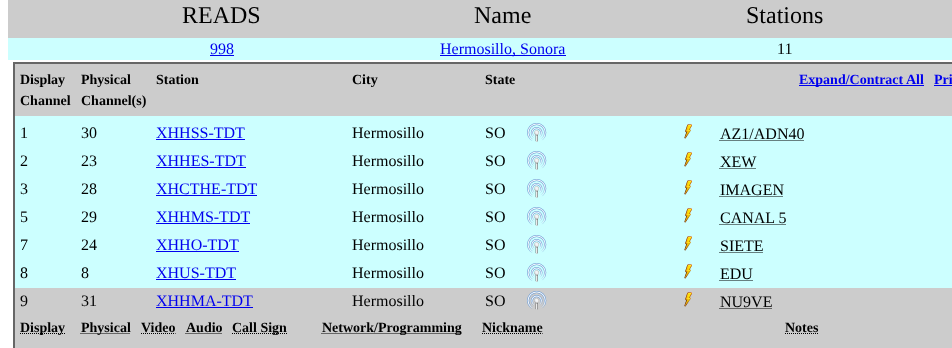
(async () => {
  const canvas = document.querySelector("canvas");
  canvas.width = 952;
  canvas.height = 348;
  const ctx = canvas.getContext("2d");
  ctx.miterLimit = 4;
  ctx.fontKerning = "normal";
  async function loadImage(src) {
    const img = new Image();
    img.src = src;
    await img.decode();
    return img;
  }
  let path;

  ctx.fillStyle = "#ffffff";
  ctx.fillRect(0, 0, 952, 348);
  for (const [x, y, w, h, color] of [
    [8, 0, 944, 38, "#cccccc"],
    [8, 38, 944, 22, "#ccffff"],
    [210, 55, 24, 1, "#0000ee"],
    [440, 55, 126, 1, "#0000ee"],
    [15, 116, 937, 172, "#ccffff"],
  ]) {
    ctx.fillStyle = color;
    ctx.fillRect(x, y, w, h);
  }
  ctx.strokeStyle = "#666666";
  ctx.lineWidth = 2;
  ctx.strokeRect(14, 63, 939, 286);
  for (const [x, y, w, h, color] of [
    [15, 64, 937, 52, "#cccccc"],
    [799, 85, 125, 1, "#0000ee"],
    [934, 85, 18, 1, "#0000ee"],
    [156, 139, 89, 1, "#0000ee"],
  ]) {
    ctx.fillStyle = color;
    ctx.fillRect(x, y, w, h);
  }
  ctx.drawImage(await loadImage("img/1.png"), 527, 123, 20, 19);
  ctx.drawImage(await loadImage("img/2.png"), 684, 124, 8, 15);
  path = new Path2D("M719.5 140.5H804");
  ctx.strokeStyle = "#000000";
  ctx.lineWidth = 1;
  ctx.setLineDash([1, 1]);
  ctx.stroke(path);
  ctx.fillRect(156, 167, 90, 1);
  ctx.drawImage(await loadImage("img/1.png"), 527, 151, 20, 19);
  ctx.drawImage(await loadImage("img/2.png"), 684, 152, 8, 15);
  path = new Path2D("M719.5 168.5H756");
  ctx.stroke(path);
  ctx.fillRect(156, 195, 101, 1);
  ctx.drawImage(await loadImage("img/1.png"), 527, 179, 20, 19);
  ctx.drawImage(await loadImage("img/2.png"), 684, 180, 8, 15);
  path = new Path2D("M719.5 196.5H783.5");
  ctx.stroke(path);
  ctx.fillRect(156, 223, 94, 1);
  ctx.drawImage(await loadImage("img/1.png"), 527, 207, 20, 19);
  ctx.drawImage(await loadImage("img/2.png"), 684, 208, 8, 15);
  path = new Path2D("M719.5 224.5H786");
  ctx.stroke(path);
  ctx.fillRect(156, 251, 83, 1);
  ctx.drawImage(await loadImage("img/1.png"), 527, 235, 20, 19);
  ctx.drawImage(await loadImage("img/2.png"), 684, 236, 8, 15);
  path = new Path2D("M719.5 252.5H763");
  ctx.stroke(path);
  ctx.fillRect(156, 279, 80, 1);
  ctx.drawImage(await loadImage("img/1.png"), 527, 263, 20, 19);
  ctx.drawImage(await loadImage("img/2.png"), 684, 264, 8, 15);
  path = new Path2D("M719.5 280.5H752.5");
  ctx.stroke(path);
  ctx.fillStyle = "#cccccc";
  ctx.fillRect(15, 288, 937, 60);
  ctx.fillStyle = "#0000ee";
  ctx.fillRect(156, 307, 97, 1);
  ctx.drawImage(await loadImage("img/3.png"), 527, 291, 20, 19);
  ctx.drawImage(await loadImage("img/4.png"), 684, 292, 8, 15);
  path = new Path2D("M719.5 308.5H772");
  ctx.stroke(path);
  path = new Path2D("M20 333.5H65");
  ctx.stroke(path);
  path = new Path2D("M80.5 333.5H130.5");
  ctx.stroke(path);
  path = new Path2D("M141 333.5H175.5");
  ctx.stroke(path);
  path = new Path2D("M185.5 333.5H222");
  ctx.stroke(path);
  path = new Path2D("M232 333.5H287");
  ctx.stroke(path);
  path = new Path2D("M321.5 333.5H461.5");
  ctx.stroke(path);
  path = new Path2D("M482 333.5H542.5");
  ctx.stroke(path);
  path = new Path2D("M785 333.5H818.5");
  ctx.stroke(path);
  ctx.font = "24px Liberation Serif";
  ctx.fillStyle = "#000000";
  for (const [text, x, y] of [
    ["READS", 182, 23],
    ["Name", 474, 23],
    ["Stations", 746, 23],
  ]) {
    ctx.fillText(text, x, y);
  }
  ctx.font = "16px Liberation Serif";
  ctx.fillStyle = "#0000ee";
  ctx.fillText("998", 210, 54);
  ctx.fillText("Hermosillo, Sonora", 440, 54);
  ctx.fillStyle = "#000000";
  ctx.fillText("11", 777, 54);
  ctx.font = "bold 14px Liberation Serif";
  for (const [text, x, y] of [
    ["Display", 20, 84],
    ["Channel", 20, 105],
    ["Physical", 81, 84],
    ["Channel(s)", 81, 105],
    ["Station", 156, 84],
    ["City", 352, 84],
    ["State", 485, 84],
  ]) {
    ctx.fillText(text, x, y);
  }
  ctx.fillStyle = "#0000ee";
  ctx.fillText("Expand/Contract All", 799, 84);
  ctx.fillText("Pri", 934, 84);
  ctx.font = "16px Liberation Serif";
  ctx.fillStyle = "#000000";
  ctx.fillText("1", 20, 138);
  ctx.fillText("30", 81, 138);
  ctx.fillStyle = "#0000ee";
  ctx.fillText("XHHSS-TDT", 156, 138);
  ctx.fillStyle = "#000000";
  for (const [text, x, y] of [
    ["Hermosillo", 352, 138],
    ["SO", 485, 138],
    ["AZ1/ADN40", 720, 139],
    ["2", 20, 166],
    ["23", 81, 166],
  ]) {
    ctx.fillText(text, x, y);
  }
  ctx.fillStyle = "#0000ee";
  ctx.fillText("XHHES-TDT", 156, 166);
  ctx.fillStyle = "#000000";
  for (const [text, x, y] of [
    ["Hermosillo", 352, 166],
    ["SO", 485, 166],
    ["XEW", 720, 167],
    ["3", 20, 194],
    ["28", 81, 194],
  ]) {
    ctx.fillText(text, x, y);
  }
  ctx.fillStyle = "#0000ee";
  ctx.fillText("XHCTHE-TDT", 156, 194);
  ctx.fillStyle = "#000000";
  for (const [text, x, y] of [
    ["Hermosillo", 352, 194],
    ["SO", 485, 194],
    ["IMAGEN", 720, 195],
    ["5", 20, 222],
    ["29", 81, 222],
  ]) {
    ctx.fillText(text, x, y);
  }
  ctx.fillStyle = "#0000ee";
  ctx.fillText("XHHMS-TDT", 156, 222);
  ctx.fillStyle = "#000000";
  for (const [text, x, y] of [
    ["Hermosillo", 352, 222],
    ["SO", 485, 222],
    ["CANAL 5", 720, 223],
    ["7", 20, 250],
    ["24", 81, 250],
  ]) {
    ctx.fillText(text, x, y);
  }
  ctx.fillStyle = "#0000ee";
  ctx.fillText("XHHO-TDT", 156, 250);
  ctx.fillStyle = "#000000";
  for (const [text, x, y] of [
    ["Hermosillo", 352, 250],
    ["SO", 485, 250],
    ["SIETE", 720, 251],
    ["8", 20, 278],
    ["8", 81, 278],
  ]) {
    ctx.fillText(text, x, y);
  }
  ctx.fillStyle = "#0000ee";
  ctx.fillText("XHUS-TDT", 156, 278);
  ctx.fillStyle = "#000000";
  for (const [text, x, y] of [
    ["Hermosillo", 352, 278],
    ["SO", 485, 278],
    ["EDU", 720, 279],
    ["9", 20, 306],
    ["31", 81, 306],
  ]) {
    ctx.fillText(text, x, y);
  }
  ctx.fillStyle = "#0000ee";
  ctx.fillText("XHHMA-TDT", 156, 306);
  ctx.fillStyle = "#000000";
  for (const [text, x, y] of [
    ["Hermosillo", 352, 306],
    ["SO", 485, 306],
    ["NU9VE", 720, 307],
  ]) {
    ctx.fillText(text, x, y);
  }
  ctx.font = "bold 14px Liberation Serif";
  for (const [text, x, y] of [
    ["Display", 20, 332],
    ["Physical", 81, 332],
    ["Video", 141, 332],
    ["Audio", 186, 332],
    ["Call Sign", 232, 332],
    ["Network/Programming", 322, 332],
    ["Nickname", 482, 332],
    ["Notes", 785, 332],
  ]) {
    ctx.fillText(text, x, y);
  }
})();
